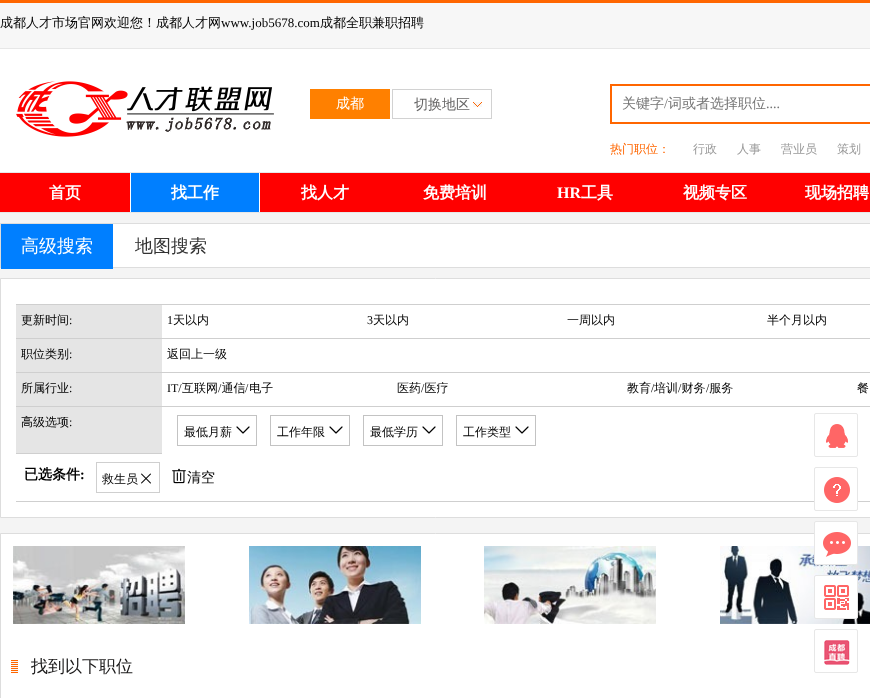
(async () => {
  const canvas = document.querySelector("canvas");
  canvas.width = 870;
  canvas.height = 698;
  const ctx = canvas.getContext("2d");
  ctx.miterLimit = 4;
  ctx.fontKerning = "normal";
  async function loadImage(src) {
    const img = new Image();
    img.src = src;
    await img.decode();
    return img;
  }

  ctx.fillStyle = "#f4f4f4";
  ctx.fillRect(0, 0, 870, 698);
  for (const [x, y, w, h, color] of [
    [0, 3, 870, 45, "#f7f7f7"],
    [0, 0, 870, 3, "#ff6600"],
    [0, 49, 870, 123, "#ffffff"],
    [0, 48, 870, 1, "#e7e7e7"],
    [0, 172, 870, 1, "#e7e7e7"],
  ]) {
    ctx.fillStyle = color;
    ctx.fillRect(x, y, w, h);
  }
  ctx.drawImage(await loadImage("img/1.png"), 16, 81, 258, 56);
  ctx.fillStyle = "#ff8000";
  ctx.fillRect(310, 89, 80, 30);
  ctx.drawImage(await loadImage("img/2.png"), 473, 102, 9, 5);
  ctx.strokeStyle = "#d2d2d2";
  ctx.strokeRect(392.5, 89.5, 99, 29);
  ctx.strokeStyle = "#ff6600";
  ctx.lineWidth = 2;
  ctx.strokeRect(611, 85, 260, 38);
  for (const [x, y, w, h, color] of [
    [0, 173, 870, 39, "#ff0000"],
    [0, 212, 870, 1, "#e7e7e7"],
    [131, 173, 128, 39, "#007fff"],
    [259, 173, 1, 39, "#ffffff"],
    [130, 173, 1, 39, "#ffffff"],
    [113, 224, 757, 43, "#ffffff"],
  ]) {
    ctx.fillStyle = color;
    ctx.fillRect(x, y, w, h);
  }
  ctx.strokeStyle = "#dddddd";
  ctx.lineWidth = 1;
  ctx.strokeRect(0.5, 223.5, 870, 44);
  ctx.fillStyle = "#007fff";
  ctx.fillRect(1, 224, 112, 45);
  ctx.fillStyle = "#ffffff";
  ctx.beginPath();
  ctx.rect(0.5, 278.5, 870, 239);
  ctx.fill();
  ctx.stroke();
  for (const [x, y, w, h, color] of [
    [16, 305, 146, 33, "#e5e5e5"],
    [16, 304, 854, 1, "#cfcfcf"],
    [16, 339, 146, 33, "#e5e5e5"],
    [16, 338, 854, 1, "#cfcfcf"],
    [16, 372, 854, 1, "#cfcfcf"],
    [16, 373, 146, 33, "#e5e5e5"],
    [16, 406, 854, 1, "#cfcfcf"],
    [16, 407, 146, 46, "#e5e5e5"],
    [16, 453, 146, 1, "#cfcfcf"],
  ]) {
    ctx.fillStyle = color;
    ctx.fillRect(x, y, w, h);
  }
  ctx.strokeStyle = "#c3c3c3";
  ctx.strokeRect(177.5, 415.5, 79, 30);
  ctx.drawImage(await loadImage("img/3.png"), 236, 426, 14, 8);
  ctx.strokeRect(270.5, 415.5, 79, 30);
  ctx.drawImage(await loadImage("img/3.png"), 329, 426, 14, 8);
  ctx.strokeRect(363.5, 415.5, 79, 30);
  ctx.drawImage(await loadImage("img/3.png"), 422, 426, 14, 8);
  ctx.strokeRect(456.5, 415.5, 79, 30);
  ctx.drawImage(await loadImage("img/3.png"), 515, 426, 14, 8);
  ctx.fillRect(16, 501, 854, 1);
  ctx.strokeStyle = "#cfcfcf";
  ctx.strokeRect(96.5, 462.5, 63, 30);
  ctx.drawImage(await loadImage("img/4.png"), 141, 473, 10, 11);
  ctx.drawImage(await loadImage("img/5.png"), 172, 468, 14, 16);
  ctx.fillStyle = "#ffffff";
  ctx.beginPath();
  ctx.rect(0.5, 533.5, 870, 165);
  ctx.fill();
  ctx.strokeStyle = "#dddddd";
  ctx.stroke();
  ctx.drawImage(await loadImage("img/6.png"), 13, 546, 172, 78);
  ctx.drawImage(await loadImage("img/7.png"), 249, 546, 172, 78);
  ctx.drawImage(await loadImage("img/8.png"), 484, 546, 172, 78);
  ctx.drawImage(await loadImage("img/9.png"), 720, 546, 150, 78);
  ctx.drawImage(await loadImage("img/10.png"), 11, 660, 7, 13);
  ctx.beginPath();
  ctx.roundRect(814.5, 413.5, 43, 43, 1.5);
  ctx.strokeStyle = "#e7e7e7";
  ctx.stroke();
  ctx.drawImage(await loadImage("img/11.png"), 826, 424, 22, 24);
  ctx.beginPath();
  ctx.roundRect(814.5, 467.5, 43, 43, 1.5);
  ctx.fill();
  ctx.stroke();
  ctx.drawImage(await loadImage("img/12.png"), 824, 477, 26, 26);
  ctx.beginPath();
  ctx.roundRect(814.5, 521.5, 43, 43, 1.5);
  ctx.fill();
  ctx.stroke();
  ctx.drawImage(await loadImage("img/13.png"), 823, 532, 28, 25);
  ctx.beginPath();
  ctx.roundRect(814.5, 575.5, 43, 43, 1.5);
  ctx.fill();
  ctx.stroke();
  ctx.drawImage(await loadImage("img/14.png"), 824, 585, 25, 25);
  ctx.beginPath();
  ctx.roundRect(814.5, 629.5, 43, 43, 1.5);
  ctx.stroke();
  ctx.drawImage(await loadImage("img/15.png"), 824, 640, 26, 25);
  ctx.font = "500 13px WenQuanYi Zen Hei";
  ctx.fillStyle = "#000000";
  ctx.fillText("成都人才市场官网欢迎您！成都人才网", 0, 27);
  ctx.font = "13px Liberation Serif";
  ctx.fillText("www.job5678.com", 221, 27);
  ctx.font = "500 13px WenQuanYi Zen Hei";
  ctx.fillText("成都全职兼职招聘", 320, 27);
  ctx.font = "500 14px WenQuanYi Zen Hei";
  ctx.fillStyle = "#ffffff";
  ctx.fillText("成都", 336, 108);
  ctx.fillStyle = "#676666";
  ctx.fillText("切换地区", 414, 109);
  ctx.fillStyle = "#757575";
  ctx.fillText("关键字", 622, 108);
  ctx.font = "14px Liberation Serif";
  ctx.fillText("/", 664, 108);
  ctx.font = "500 14px WenQuanYi Zen Hei";
  ctx.fillText("词或者选择职位", 668, 108);
  ctx.font = "14px Liberation Serif";
  ctx.fillText("....", 766, 108);
  ctx.font = "500 12px WenQuanYi Zen Hei";
  ctx.fillStyle = "#ff6600";
  ctx.fillText("热门职位：", 610, 153);
  ctx.fillStyle = "#999999";
  for (const [text, x, y] of [
    ["行政", 693, 153],
    ["人事", 737, 153],
    ["营业员", 781, 153],
    ["策划", 837, 153],
  ]) {
    ctx.fillText(text, x, y);
  }
  ctx.font = "bold 16px WenQuanYi Zen Hei";
  ctx.fillStyle = "#ffffff";
  for (const [text, x, y] of [
    ["首页", 49, 198],
    ["找工作", 171, 198],
    ["找人才", 301, 198],
    ["免费培训", 423, 198],
  ]) {
    ctx.fillText(text, x, y);
  }
  ctx.font = "bold 16px Liberation Serif";
  ctx.fillText("HR", 557, 198);
  ctx.font = "bold 16px WenQuanYi Zen Hei";
  for (const [text, x, y] of [
    ["工具", 581, 198],
    ["视频专区", 683, 198],
    ["现场招聘", 805, 198],
  ]) {
    ctx.fillText(text, x, y);
  }
  ctx.font = "500 18px WenQuanYi Zen Hei";
  ctx.fillText("高级搜索", 21, 252);
  ctx.fillStyle = "#333333";
  ctx.fillText("地图搜索", 135, 252);
  ctx.font = "500 12px WenQuanYi Zen Hei";
  ctx.fillStyle = "#000000";
  ctx.fillText("更新时间", 21, 324);
  ctx.font = "12px Liberation Serif";
  ctx.fillText(":", 69, 324);
  ctx.fillText("1", 167, 324);
  ctx.font = "500 12px WenQuanYi Zen Hei";
  ctx.fillText("天以内", 173, 324);
  ctx.font = "12px Liberation Serif";
  ctx.fillText("3", 367, 324);
  ctx.font = "500 12px WenQuanYi Zen Hei";
  for (const [text, x, y] of [
    ["天以内", 373, 324],
    ["一周以内", 567, 324],
    ["半个月以内", 767, 324],
    ["职位类别", 21, 358],
  ]) {
    ctx.fillText(text, x, y);
  }
  ctx.font = "12px Liberation Serif";
  ctx.fillText(":", 69, 358);
  ctx.font = "500 12px WenQuanYi Zen Hei";
  ctx.fillText("返回上一级", 167, 358);
  ctx.fillText("所属行业", 21, 392);
  ctx.font = "12px Liberation Serif";
  ctx.fillText(":", 69, 392);
  ctx.fillText("IT/", 167, 392);
  ctx.font = "500 12px WenQuanYi Zen Hei";
  ctx.fillText("互联网 通信 电子", 182, 392);
  ctx.font = "12px Liberation Serif";
  ctx.fillText("/", 218, 392);
  ctx.fillText("/", 245, 392);
  ctx.font = "500 12px WenQuanYi Zen Hei";
  ctx.fillText("医药 医疗", 397, 392);
  ctx.font = "12px Liberation Serif";
  ctx.fillText("/", 421, 392);
  ctx.font = "500 12px WenQuanYi Zen Hei";
  ctx.fillText("教育", 627, 392);
  ctx.font = "12px Liberation Serif";
  ctx.fillText("/", 651, 392);
  ctx.font = "500 12px WenQuanYi Zen Hei";
  ctx.fillText("培训 财务 服务", 654, 392);
  ctx.font = "12px Liberation Serif";
  ctx.fillText("/", 678, 392);
  ctx.fillText("/", 706, 392);
  ctx.font = "500 12px WenQuanYi Zen Hei";
  ctx.fillText("餐", 857, 392);
  ctx.fillText("高级选项", 21, 426);
  ctx.font = "12px Liberation Serif";
  ctx.fillText(":", 69, 426);
  ctx.font = "500 12px WenQuanYi Zen Hei";
  for (const [text, x, y] of [
    ["最低月薪", 184, 436],
    ["工作年限", 277, 436],
    ["最低学历", 370, 436],
    ["工作类型", 463, 436],
  ]) {
    ctx.fillText(text, x, y);
  }
  ctx.font = "bold 14px WenQuanYi Zen Hei";
  ctx.fillText("已选条件", 24, 479);
  ctx.font = "bold 14px Liberation Serif";
  ctx.fillText(":", 80, 479);
  ctx.font = "500 12px WenQuanYi Zen Hei";
  ctx.fillText("救生员", 102, 483);
  ctx.font = "500 14px WenQuanYi Zen Hei";
  ctx.fillText("清空", 187, 482);
  ctx.font = "500 17px WenQuanYi Zen Hei";
  ctx.fillStyle = "#1a1919";
  ctx.fillText("找到以下职位", 31, 672);
})();
